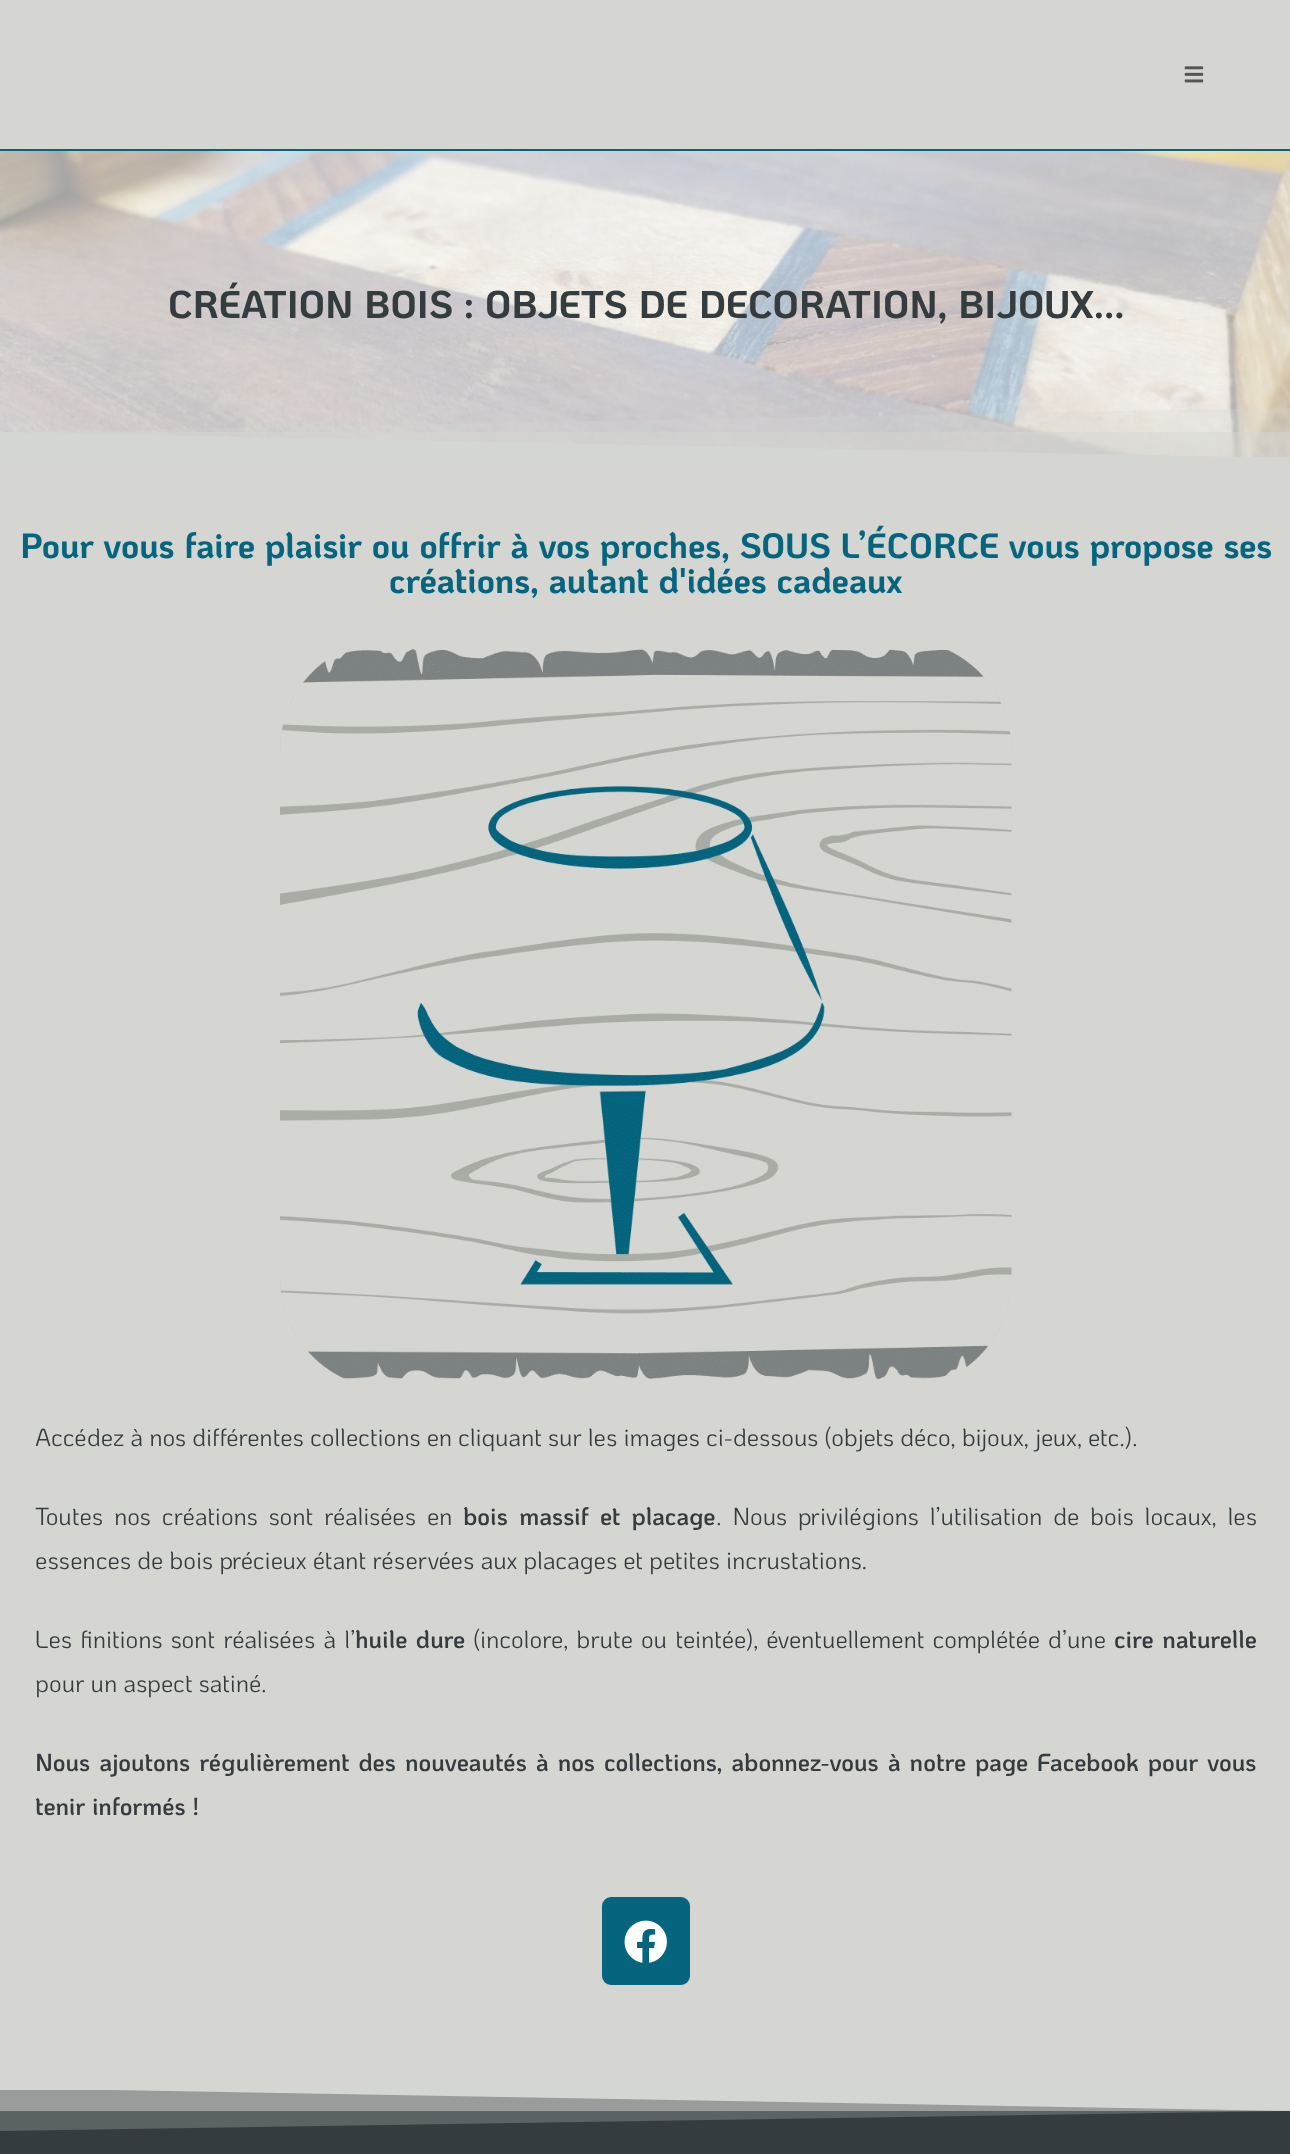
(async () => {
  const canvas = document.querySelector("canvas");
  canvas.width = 1290;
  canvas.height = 2154;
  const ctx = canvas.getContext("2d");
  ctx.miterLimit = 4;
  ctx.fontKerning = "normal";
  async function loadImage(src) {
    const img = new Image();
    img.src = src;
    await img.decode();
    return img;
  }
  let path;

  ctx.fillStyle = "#d5d6d2";
  ctx.fillRect(0, 0, 1290, 2154);
  ctx.fillStyle = "#05657f";
  ctx.fillRect(0, 149, 1290, 2);
  ctx.drawImage(await loadImage("img/1.png"), 1184, 66, 20, 17);
  ctx.drawImage(await loadImage("img/2.png"), 0, 151, 1290, 306);
  ctx.fillStyle = "#d5d6d2";
  path = new Path2D("M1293 458H-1V432Z");
  ctx.fill(path);
  ctx.fillStyle = "rgba(213, 214, 210, 0.5)";
  ctx.fillRect(36, 432, 1254, 25);
  ctx.fillStyle = "rgba(213, 214, 210, 0.25)";
  path = new Path2D("M-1 458H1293V408L-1 432Z");
  ctx.fill(path);
  ctx.drawImage(await loadImage("img/3.png"), 280, 649, 732, 730);
  ctx.fillStyle = "#05657f";
  ctx.beginPath();
  ctx.roundRect(602, 1897, 88, 88, 9);
  ctx.fill();
  ctx.drawImage(await loadImage("img/4.png"), 624, 1920, 43, 43);
  ctx.fillStyle = "#353c3f";
  ctx.fillRect(0, 2111, 1290, 43);
  ctx.fillStyle = "#858989";
  ctx.fillRect(0, 2090, 1290, 21);
  ctx.fillStyle = "#d5d6d2";
  path = new Path2D("M-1 2088H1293V2111Z");
  ctx.fill(path);
  ctx.fillStyle = "rgba(213, 214, 210, 0.25)";
  path = new Path2D("M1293 2088H-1V2131L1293 2111Z");
  ctx.fill(path);
  ctx.font = "bold 38.5px KoHo";
  ctx.fillStyle = "#353c3f";
  ctx.fillText("CRÉATION BOIS : OBJETS DE DECORATION, BIJOUX...", 168, 318);
  ctx.font = "bold 35px KoHo";
  ctx.fillStyle = "#05657f";
  ctx.fillText("Pour vous faire plaisir ou offrir à vos proches, SOUS L’ÉCORCE vous propose ses", 20, 558);
  ctx.fillText("créations, autant d'idées cadeaux", 389, 593);
  ctx.font = "24.5px KoHo";
  ctx.fillStyle = "#353c3f";
  ctx.fillText("Accédez à nos différentes collections en cliquant sur les images ci-dessous (objets déco, bijoux, jeux, etc.).", 35, 1446);
  ctx.wordSpacing = "4.75px";
  ctx.fillText("Toutes nos créations sont réalisées en", 35, 1525);
  ctx.font = "600 24.5px KoHo";
  ctx.fillText("bois massif et placage", 463, 1525);
  ctx.font = "24.5px KoHo";
  ctx.fillText(". Nous privilégions l’utilisation de bois locaux, les", 716, 1525);
  ctx.wordSpacing = "0px";
  ctx.fillText("essences de bois précieux étant réservées aux placages et petites incrustations.", 35, 1569);
  ctx.wordSpacing = "2px";
  ctx.fillText("Les finitions sont réalisées à l’", 35, 1648);
  ctx.font = "600 24.5px KoHo";
  ctx.fillText("huile dure", 355, 1648);
  ctx.font = "24.5px KoHo";
  ctx.fillText("(incolore, brute ou teintée), éventuellement complétée d’une", 473, 1648);
  ctx.font = "600 24.5px KoHo";
  ctx.fillText("cire naturelle", 1114, 1648);
  ctx.wordSpacing = "0px";
  ctx.font = "24.5px KoHo";
  ctx.fillText("pour un aspect satiné.", 35, 1692);
  ctx.wordSpacing = "2.4px";
  ctx.font = "600 24.5px KoHo";
  ctx.fillText("Nous ajoutons régulièrement des nouveautés à nos collections, abonnez-vous à notre page Facebook pour vous", 35, 1771);
  ctx.wordSpacing = "0px";
  ctx.fillText("tenir informés !", 35, 1815);
})();
